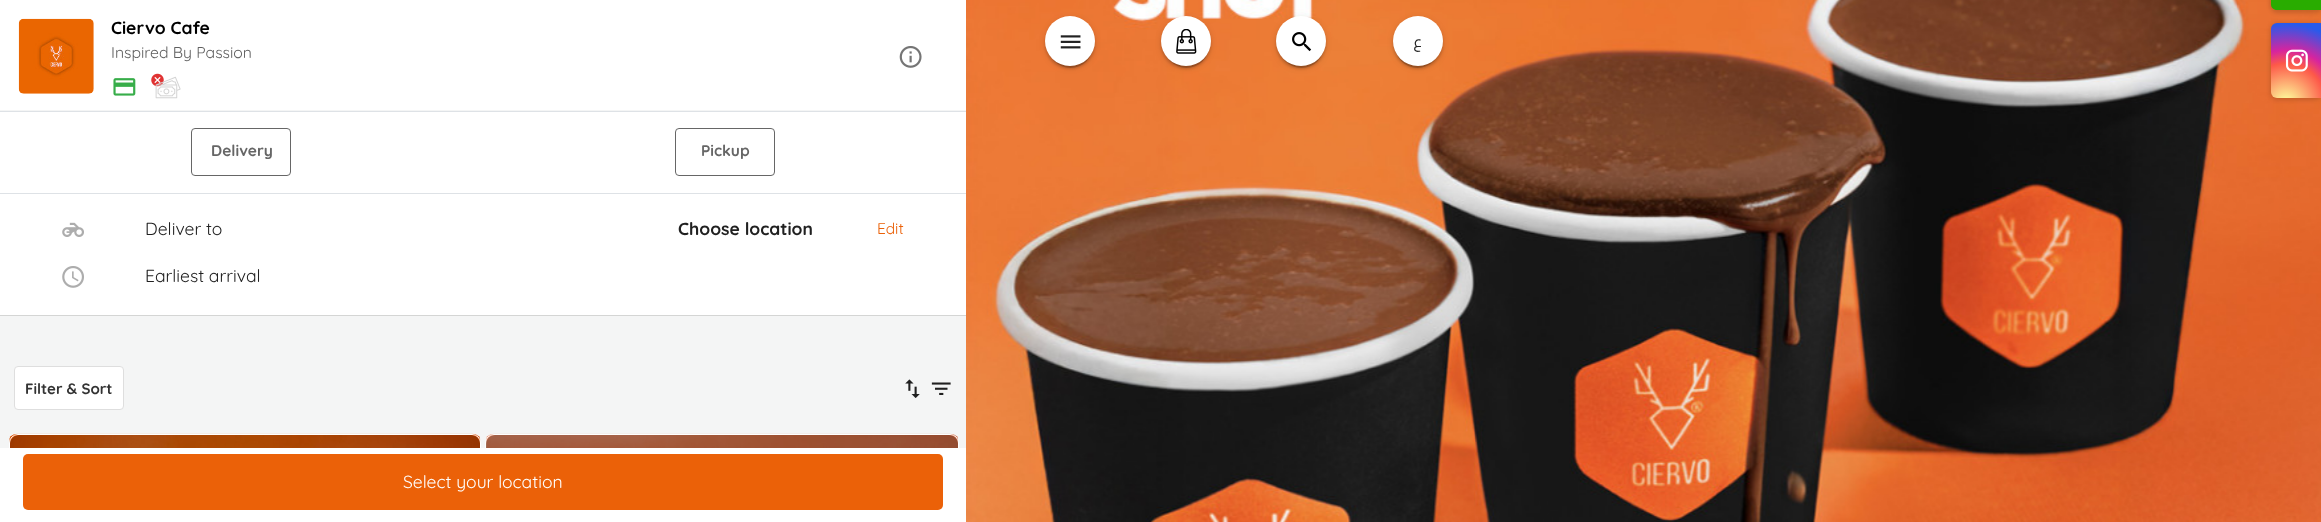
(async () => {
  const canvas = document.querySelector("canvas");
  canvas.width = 2321;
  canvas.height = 522;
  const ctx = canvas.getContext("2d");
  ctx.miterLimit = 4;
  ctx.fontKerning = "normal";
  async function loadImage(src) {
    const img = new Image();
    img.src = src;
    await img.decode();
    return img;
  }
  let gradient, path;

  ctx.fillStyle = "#f4f5f5";
  ctx.fillRect(0, 0, 2321, 522);
  for (const [x, y, w, h, color] of [
    [0, 315, 968, 1, "#d4d5d4"],
    [0, 111, 968, 1, "#dee2e6"],
    [0, 112, 966, 203, "#ffffff"],
    [0, 193, 968, 1, "#dee2e6"],
  ]) {
    ctx.fillStyle = color;
    ctx.fillRect(x, y, w, h);
  }
  ctx.drawImage(await loadImage("img/13.png"), 966, 0, 1355, 522);
  ctx.fillStyle = "rgba(0, 0, 0, 0.15)";
  ctx.filter = "blur(2px)";
  ctx.beginPath();
  ctx.roundRect(2270, -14, 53, 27, 8);
  ctx.fill();
  ctx.filter = "none";
  ctx.fillStyle = "#29ac00";
  path = new Path2D("M2277-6H2321V10H2277C2273.5 10 2271 7.5 2271 4V0C2271-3.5 2273.5-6 2277-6Z");
  ctx.fill(path);
  ctx.drawImage(await loadImage("img/1.png"), 2271, 4, 3, 5);
  ctx.fillStyle = "#ffffff";
  ctx.fillRect(0, 0, 966, 110);
  ctx.drawImage(await loadImage("img/2.png"), 18, 18, 76, 76);
  ctx.drawImage(await loadImage("img/3.png"), 113, 78, 23, 18);
  ctx.drawImage(await loadImage("img/4.png"), 151, 73, 13, 14);
  ctx.drawImage(await loadImage("img/5.png"), 155, 76, 26, 23);
  ctx.drawImage(await loadImage("img/6.png"), 899, 46, 23, 22);
  ctx.beginPath();
  ctx.roundRect(191.5, 128.5, 99, 47, 3.5);
  ctx.strokeStyle = "#666666";
  ctx.stroke();
  ctx.beginPath();
  ctx.roundRect(675.5, 128.5, 99, 47, 3.5);
  ctx.stroke();
  ctx.drawImage(await loadImage("img/7.png"), 62, 222, 22, 15);
  ctx.drawImage(await loadImage("img/8.png"), 62, 266, 22, 22);
  ctx.beginPath();
  ctx.roundRect(14.5, 366.5, 109, 43, 3.5);
  ctx.fill();
  ctx.strokeStyle = "#dedede";
  ctx.stroke();
  ctx.drawImage(await loadImage("img/9.png"), 905, 379, 15, 19);
  ctx.drawImage(await loadImage("img/10.png"), 931, 382, 20, 13);
  ctx.drawImage(await loadImage("img/11.png"), 9, 433, 472, 15);
  ctx.beginPath();
  ctx.roundRect(9.5, 434.5, 471, 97, 8.5);
  ctx.strokeStyle = "#ffffff";
  ctx.stroke();
  ctx.fillStyle = "rgba(0, 0, 0, 0.3)";
  ctx.beginPath();
  ctx.roundRect(10, 435, 470, 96, 9);
  ctx.fill();
  ctx.drawImage(await loadImage("img/12.png"), 486, 433, 473, 15);
  ctx.beginPath();
  ctx.roundRect(485.5, 434.5, 473, 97, 8.5);
  ctx.stroke();
  ctx.beginPath();
  ctx.roundRect(486, 435, 472, 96, 9);
  ctx.fill();
  ctx.fillStyle = "#ffffff";
  ctx.fillRect(0, 448, 966, 74);
  ctx.fillStyle = "#eb6108";
  ctx.beginPath();
  ctx.roundRect(23, 454, 920, 56, 5);
  ctx.fill();
  ctx.fillStyle = "rgba(0, 0, 0, 0.12)";
  ctx.filter = "blur(3px)";
  ctx.beginPath();
  ctx.roundRect(1045, 18, 50, 50, 25);
  ctx.fill();
  ctx.filter = "none";
  ctx.fillStyle = "rgba(0, 0, 0, 0.14)";
  ctx.filter = "blur(1px)";
  ctx.beginPath();
  ctx.roundRect(1045, 19, 50, 50, 25);
  ctx.fill();
  ctx.filter = "none";
  ctx.fillStyle = "rgba(0, 0, 0, 0.2)";
  ctx.filter = "blur(0.5px)";
  ctx.beginPath();
  ctx.roundRect(1048, 23, 45, 45, 22.5);
  ctx.fill();
  ctx.filter = "none";
  ctx.fillStyle = "#ffffff";
  ctx.beginPath();
  ctx.arc(1070, 41, 25, 0, Math.PI * 2);
  ctx.fill();
  ctx.drawImage(await loadImage("img/14.png"), 1060, 35, 21, 14);
  ctx.fillStyle = "rgba(0, 0, 0, 0.12)";
  ctx.filter = "blur(3px)";
  ctx.beginPath();
  ctx.roundRect(1161, 18, 50, 50, 25);
  ctx.fill();
  ctx.filter = "none";
  ctx.fillStyle = "rgba(0, 0, 0, 0.14)";
  ctx.filter = "blur(1px)";
  ctx.beginPath();
  ctx.roundRect(1161, 19, 50, 50, 25);
  ctx.fill();
  ctx.filter = "none";
  ctx.fillStyle = "rgba(0, 0, 0, 0.2)";
  ctx.filter = "blur(0.5px)";
  ctx.beginPath();
  ctx.roundRect(1164, 23, 45, 45, 22.5);
  ctx.fill();
  ctx.filter = "none";
  ctx.fillStyle = "#ffffff";
  ctx.beginPath();
  ctx.arc(1186, 41, 25, 0, Math.PI * 2);
  ctx.fill();
  ctx.drawImage(await loadImage("img/15.png"), 1176, 29, 21, 25);
  ctx.fillStyle = "rgba(0, 0, 0, 0.12)";
  ctx.filter = "blur(3px)";
  ctx.beginPath();
  ctx.roundRect(1276, 18, 50, 50, 25);
  ctx.fill();
  ctx.filter = "none";
  ctx.fillStyle = "rgba(0, 0, 0, 0.14)";
  ctx.filter = "blur(1px)";
  ctx.beginPath();
  ctx.roundRect(1276, 19, 50, 50, 25);
  ctx.fill();
  ctx.filter = "none";
  ctx.fillStyle = "rgba(0, 0, 0, 0.2)";
  ctx.filter = "blur(0.5px)";
  ctx.beginPath();
  ctx.roundRect(1279, 23, 45, 45, 22.5);
  ctx.fill();
  ctx.filter = "none";
  ctx.fillStyle = "#ffffff";
  ctx.beginPath();
  ctx.arc(1301, 41, 25, 0, Math.PI * 2);
  ctx.fill();
  ctx.drawImage(await loadImage("img/16.png"), 1292, 32, 20, 20);
  ctx.fillStyle = "rgba(0, 0, 0, 0.12)";
  ctx.filter = "blur(3px)";
  ctx.beginPath();
  ctx.roundRect(1393, 18, 50, 50, 25);
  ctx.fill();
  ctx.filter = "none";
  ctx.fillStyle = "rgba(0, 0, 0, 0.14)";
  ctx.filter = "blur(1px)";
  ctx.beginPath();
  ctx.roundRect(1393, 19, 50, 50, 25);
  ctx.fill();
  ctx.filter = "none";
  ctx.fillStyle = "rgba(0, 0, 0, 0.2)";
  ctx.filter = "blur(0.5px)";
  ctx.beginPath();
  ctx.roundRect(1395, 23, 45, 45, 22.5);
  ctx.fill();
  ctx.filter = "none";
  ctx.fillStyle = "#ffffff";
  ctx.beginPath();
  ctx.arc(1418, 41, 25, 0, Math.PI * 2);
  ctx.fill();
  ctx.fillStyle = "rgba(0, 0, 0, 0.15)";
  ctx.filter = "blur(2px)";
  ctx.beginPath();
  ctx.roundRect(2270, 23, 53, 77, 8);
  ctx.fill();
  ctx.filter = "none";
  gradient = ctx.createRadialGradient(2286, 103, 0, 2286, 103, 88);
  gradient.addColorStop(0, "#fdf497");
  gradient.addColorStop(0.05, "#fdf497");
  gradient.addColorStop(0.45, "#fd5949");
  gradient.addColorStop(0.6, "#d6249f");
  gradient.addColorStop(0.9, "#285aeb");
  ctx.fillStyle = gradient;
  ctx.beginPath();
  ctx.roundRect(2271, 23, 50, 75, [6, 0, 0, 6]);
  ctx.fill();
  ctx.drawImage(await loadImage("img/17.png"), 2285, 49, 23, 23);
  ctx.font = "300 17.5px 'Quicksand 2'";
  ctx.fillStyle = "#000000";
  ctx.fillText("Ciervo Cafe", 111, 34);
  ctx.font = "300 15.75px Quicksand";
  ctx.fillStyle = "#5f5f5f";
  ctx.fillText("Inspired By Passion", 111, 58);
  ctx.font = "300 15.5px 'Quicksand 2'";
  ctx.fillStyle = "#666666";
  ctx.fillText("Delivery", 211, 156);
  ctx.fillText("Pickup", 701, 156);
  ctx.font = "300 17.5px Quicksand";
  ctx.fillStyle = "#212121";
  ctx.fillText("Deliver to", 145, 235);
  ctx.font = "300 17.5px 'Quicksand 2'";
  ctx.fillText("Choose location", 678, 235);
  ctx.font = "300 15.5px Quicksand";
  ctx.fillStyle = "#eb6108";
  ctx.fillText("Edit", 877, 234);
  ctx.font = "300 17.5px Quicksand";
  ctx.fillStyle = "#212121";
  ctx.fillText("Earliest arrival", 145, 282);
  ctx.font = "300 15px 'Quicksand 2'";
  ctx.fillStyle = "#333333";
  ctx.fillText("Filter & Sort", 25, 394);
  ctx.font = "300 17.5px Quicksand";
  ctx.fillStyle = "#ffffff";
  ctx.fillText("Select your location", 403, 488);
  ctx.direction = "rtl";
  ctx.font = "15.5px Cairo";
  ctx.fillStyle = "#212121";
  ctx.fillText("ع", 1422, 47);
})();
